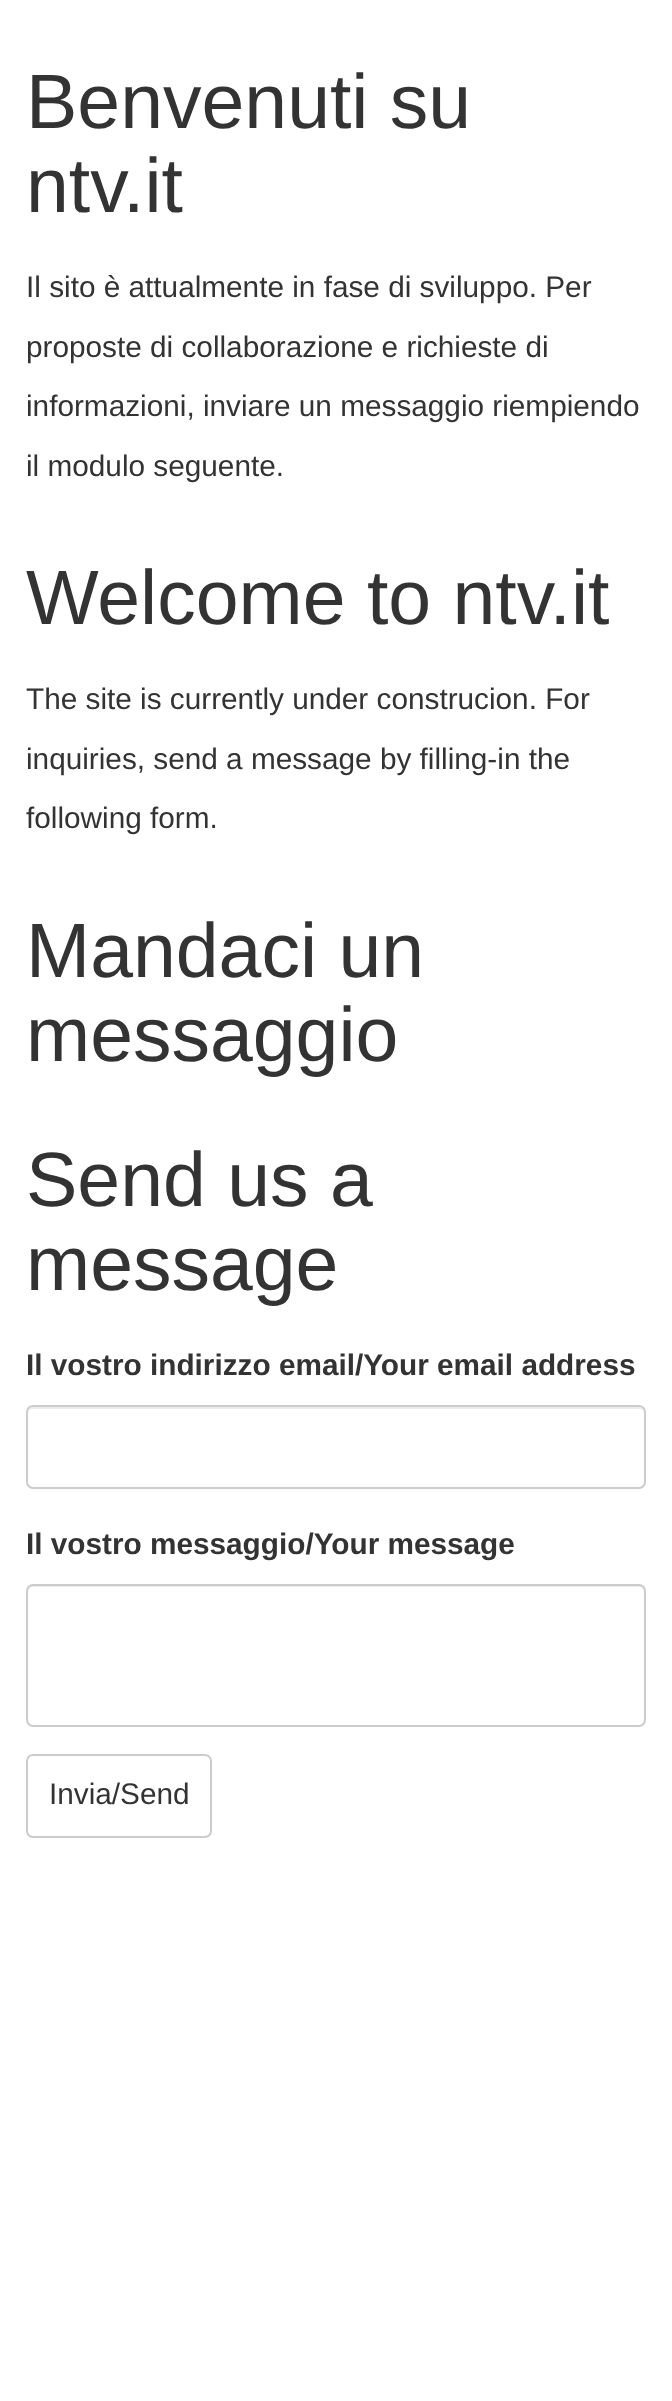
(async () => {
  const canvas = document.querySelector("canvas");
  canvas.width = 672;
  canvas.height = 2401;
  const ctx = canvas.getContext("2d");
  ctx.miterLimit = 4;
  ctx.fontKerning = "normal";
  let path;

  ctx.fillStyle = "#ffffff";
  ctx.fillRect(0, 0, 672, 2401);
  ctx.fillStyle = "#ececec";
  path = new Path2D("M33 1409H639C642 1409 644 1411 644 1414C644 1411 643 1407 639 1407H33C29 1407 28 1411 28 1414C28 1411 30 1409 33 1409Z");
  ctx.fill(path);
  ctx.beginPath();
  ctx.roundRect(27, 1406, 618, 82, 6);
  ctx.strokeStyle = "#cccccc";
  ctx.lineWidth = 2;
  ctx.stroke();
  path = new Path2D("M33 1587H639C642 1587 644 1590 644 1592V1591C644 1588 642 1586 639 1586H33C30 1586 28 1588 28 1591V1592C28 1590 30 1587 33 1587Z");
  ctx.fill(path);
  ctx.beginPath();
  ctx.roundRect(27, 1585, 618, 141, 6);
  ctx.stroke();
  ctx.beginPath();
  ctx.roundRect(27, 1755, 184, 82, 6);
  ctx.stroke();
  ctx.font = "77px Liberation Sans";
  ctx.fillStyle = "#333333";
  ctx.fillText("Benvenuti su", 26, 128);
  ctx.fillText("ntv.it", 26, 212);
  ctx.font = "29.75px Liberation Sans";
  for (const [text, x, y] of [
    ["Il sito è attualmente in fase di sviluppo. Per", 26, 297],
    ["proposte di collaborazione e richieste di", 26, 357],
    ["informazioni, inviare un messaggio riempiendo", 26, 416],
    ["il modulo seguente.", 26, 476],
  ]) {
    ctx.fillText(text, x, y);
  }
  ctx.font = "77px Liberation Sans";
  ctx.fillText("Welcome to ntv.it", 26, 624);
  ctx.font = "29.75px Liberation Sans";
  for (const [text, x, y] of [
    ["The site is currently under construcion. For", 26, 709],
    ["inquiries, send a message by filling-in the", 26, 769],
    ["following form.", 26, 828],
  ]) {
    ctx.fillText(text, x, y);
  }
  ctx.font = "77px Liberation Sans";
  for (const [text, x, y] of [
    ["Mandaci un", 26, 977],
    ["messaggio", 26, 1061],
    ["Send us a", 26, 1206],
    ["message", 26, 1290],
  ]) {
    ctx.fillText(text, x, y);
  }
  ctx.font = "bold 29.75px Liberation Sans";
  ctx.fillText("Il vostro indirizzo email/Your email address", 26, 1375);
  ctx.fillText("Il vostro messaggio/Your message", 26, 1554);
  ctx.font = "29.75px Liberation Sans";
  ctx.fillText("Invia/Send", 49, 1804);
})();
